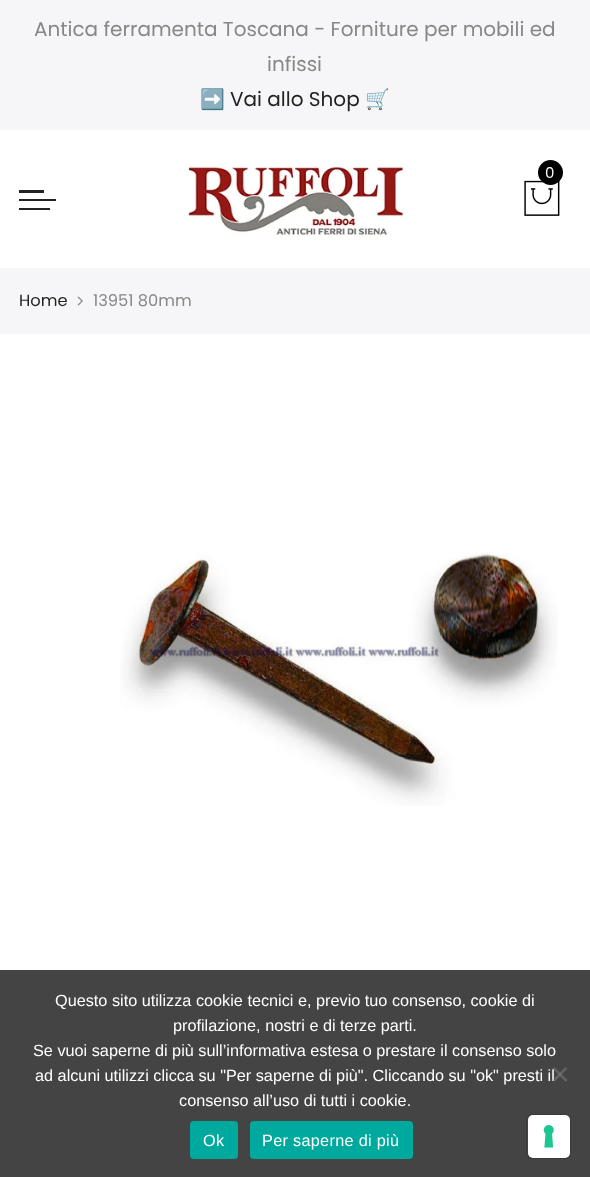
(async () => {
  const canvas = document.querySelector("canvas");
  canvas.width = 590;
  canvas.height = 1177;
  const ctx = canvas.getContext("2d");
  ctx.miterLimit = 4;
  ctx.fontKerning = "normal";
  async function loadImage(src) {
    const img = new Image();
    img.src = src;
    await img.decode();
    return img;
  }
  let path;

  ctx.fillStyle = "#ffffff";
  ctx.fillRect(0, 0, 590, 1177);
  ctx.fillStyle = "#f6f6f8";
  ctx.fillRect(0, 0, 590, 130);
  ctx.drawImage(await loadImage("img/1.png"), 187, 163, 220, 75);
  ctx.drawImage(await loadImage("img/2.png"), 524, 180, 36, 36);
  ctx.fillStyle = "#000000";
  ctx.beginPath();
  ctx.arc(550.5, 172.5, 12.5, 0, Math.PI * 2);
  ctx.fill();
  for (const [x, y, w, h, color] of [
    [19, 190, 25, 3, "#222222"],
    [19, 199, 37, 2, "#222222"],
    [19, 208, 31, 2, "#222222"],
    [0, 268, 590, 66, "#f6f6f8"],
  ]) {
    ctx.fillStyle = color;
    ctx.fillRect(x, y, w, h);
  }
  ctx.drawImage(await loadImage("img/3.png"), 77, 296, 6, 10);
  ctx.drawImage(await loadImage("img/4.png"), 120, 552, 438, 254);
  ctx.fillStyle = "#444444";
  ctx.fillRect(0, 970, 590, 207);
  ctx.fillStyle = "#00a99d";
  ctx.beginPath();
  ctx.roundRect(190, 1121, 48, 38, 4);
  ctx.fill();
  ctx.beginPath();
  ctx.roundRect(250, 1121, 163, 38, 4);
  ctx.fill();
  ctx.beginPath();
  ctx.roundRect(526.5, 1114.5, 44, 44, 5.5);
  ctx.strokeStyle = "#3a3a3a";
  ctx.stroke();
  ctx.fillStyle = "#ffffff";
  ctx.beginPath();
  ctx.roundRect(528, 1115, 42, 43, 5);
  ctx.fill();
  ctx.drawImage(await loadImage("img/5.png"), 543, 1125, 11, 23);
  ctx.font = "20px Poppins";
  ctx.fillStyle = "#878787";
  ctx.fillText("Antica ferramenta Toscana - Forniture per mobili ed", 34, 36);
  ctx.fillText("infissi", 267, 71);
  ctx.font = "20px Noto Color Emoji";
  ctx.fillStyle = "#222222";
  ctx.fillText("➡️", 200, 106);
  ctx.font = "20px Poppins";
  ctx.fillText("Vai allo Shop", 230, 106);
  ctx.font = "20px Noto Color Emoji";
  ctx.fillText("🛒", 365, 106);
  ctx.font = "15px Poppins";
  ctx.fillStyle = "#ffffff";
  ctx.fillText("0", 545, 178);
  ctx.font = "16.25px Poppins";
  ctx.fillStyle = "#222222";
  ctx.fillText("Home", 19, 306);
  ctx.fillStyle = "#878787";
  ctx.fillText("13951 80mm", 93, 306);
  ctx.font = "16.25px Liberation Sans";
  ctx.fillStyle = "#ffffff";
  for (const [text, x, y] of [
    ["Questo sito utilizza cookie tecnici e, previo tuo consenso, cookie di", 55, 1006],
    ["profilazione, nostri e di terze parti.", 173, 1031],
    ["Se vuoi saperne di più sull’informativa estesa o prestare il consenso solo", 33, 1056],
    ["ad alcuni utilizzi clicca su \"Per saperne di più\". Cliccando su \"ok\" presti il", 35, 1081],
    ["consenso all’uso di tutti i cookie.", 179, 1106],
  ]) {
    ctx.fillText(text, x, y);
  }
  ctx.fillStyle = "rgba(128, 128, 128, 0.5)";
  path = new Path2D("M565.5 1067L567.5 1068.5L554.5 1082L552.5 1080Z");
  ctx.fill(path);
  path = new Path2D("M552.5 1068.5L554.5 1067L567.5 1080L565.5 1082Z");
  ctx.fill(path);
  ctx.letterSpacing = "0.3px";
  ctx.fillStyle = "#ffffff";
  ctx.fillText("Ok", 203, 1146);
  ctx.fillText("Per saperne di più", 262, 1146);
})();
